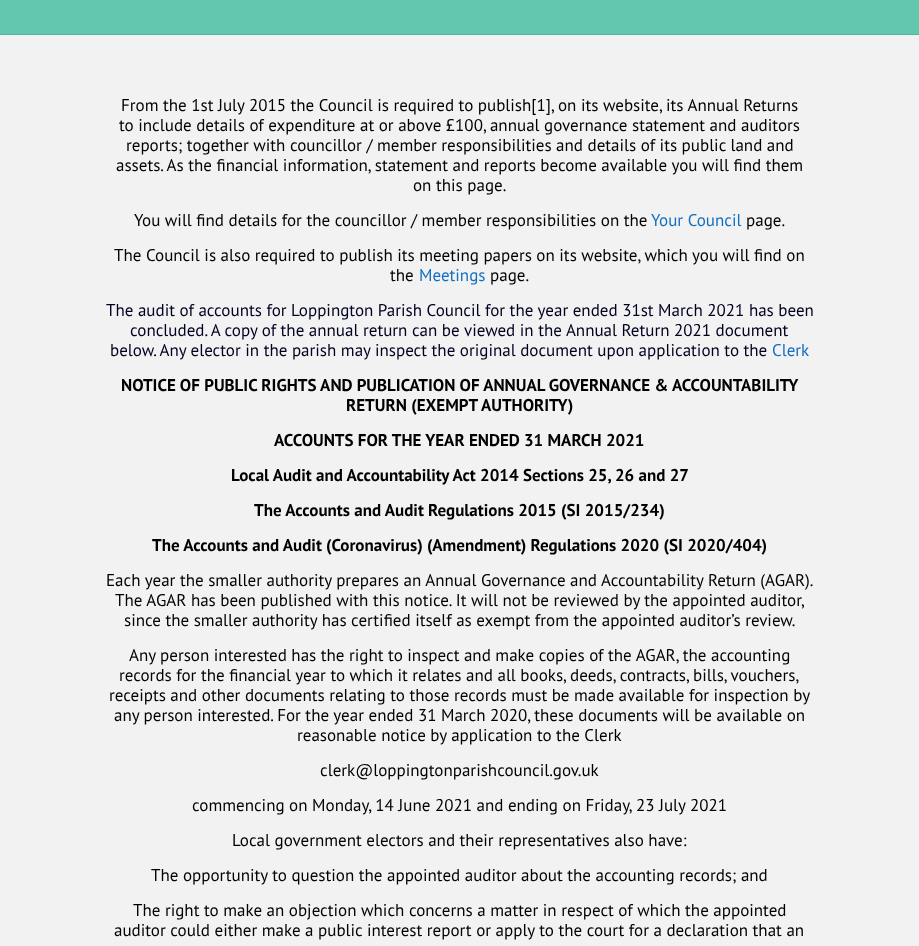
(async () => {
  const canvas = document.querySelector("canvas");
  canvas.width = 919;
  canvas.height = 946;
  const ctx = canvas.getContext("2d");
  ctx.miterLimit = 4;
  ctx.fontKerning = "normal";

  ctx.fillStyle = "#63c6ae";
  ctx.fillRect(0, 0, 919, 946);
  ctx.fillStyle = "#59b29d";
  ctx.fillRect(0, 34, 919, 1);
  ctx.fillStyle = "#f2f2f2";
  ctx.fillRect(0, 35, 919, 911);
  ctx.font = "17px PT Sans";
  ctx.fillStyle = "#000000";
  for (const [text, x, y] of [
    ["From the 1st July 2015 the Council is required to publish[1], on its website, its Annual Returns", 121, 111],
    ["to include details of expenditure at or above £100, annual governance statement and auditors", 119, 131],
    ["reports; together with councillor / member responsibilities and details of its public land and", 126, 151],
    ["assets. As the financial information, statement and reports become available you will find them", 116, 171],
    ["on this page.", 413, 191],
    ["You will find details for the councillor / member responsibilities on the", 134, 226],
  ]) {
    ctx.fillText(text, x, y);
  }
  ctx.fillStyle = "#136ebf";
  ctx.fillText("Your Council", 651, 226);
  ctx.fillStyle = "#000000";
  for (const [text, x, y] of [
    ["page.", 746, 226],
    ["The Council is also required to publish its meeting papers on its website, which you will find on", 114, 261],
    ["the", 390, 281],
  ]) {
    ctx.fillText(text, x, y);
  }
  ctx.fillStyle = "#136ebf";
  ctx.fillText("Meetings", 419, 281);
  ctx.fillStyle = "#000000";
  ctx.fillText("page.", 490, 281);
  ctx.fillStyle = "#000120";
  for (const [text, x, y] of [
    ["The audit of accounts for Loppington Parish Council for the year ended 31st March 2021 has been", 106, 316],
    ["concluded. A copy of the annual return can be viewed in the Annual Return 2021 document", 130, 336],
    ["below. Any elector in the parish may inspect the original document upon application to the", 110, 356],
  ]) {
    ctx.fillText(text, x, y);
  }
  ctx.fillStyle = "#136ebf";
  ctx.fillText("Clerk", 772, 356);
  ctx.font = "bold 17px PT Sans";
  ctx.fillStyle = "#000000";
  for (const [text, x, y] of [
    ["NOTICE OF PUBLIC RIGHTS AND PUBLICATION OF ANNUAL GOVERNANCE & ACCOUNTABILITY", 121, 391],
    ["RETURN (EXEMPT AUTHORITY)", 346, 411],
    ["ACCOUNTS FOR THE YEAR ENDED 31 MARCH 2021", 274, 446],
    ["Local Audit and Accountability Act 2014 Sections 25, 26 and 27", 231, 481],
    ["The Accounts and Audit Regulations 2015 (SI 2015/234)", 254, 516],
    ["The Accounts and Audit (Coronavirus) (Amendment) Regulations 2020 (SI 2020/404)", 152, 551],
  ]) {
    ctx.fillText(text, x, y);
  }
  ctx.font = "17px PT Sans";
  for (const [text, x, y] of [
    ["Each year the smaller authority prepares an Annual Governance and Accountability Return (AGAR).", 106, 586],
    ["The AGAR has been published with this notice. It will not be reviewed by the appointed auditor,", 115, 606],
    ["since the smaller authority has certified itself as exempt from the appointed auditor’s review.", 124, 626],
    ["Any person interested has the right to inspect and make copies of the AGAR, the accounting", 129, 661],
    ["records for the financial year to which it relates and all books, deeds, contracts, bills, vouchers,", 119, 681],
    ["receipts and other documents relating to those records must be made available for inspection by", 109, 701],
    ["any person interested. For the year ended 31 March 2020, these documents will be available on", 114, 721],
    ["reasonable notice by application to the Clerk", 297, 741],
    ["clerk@loppingtonparishcouncil.gov.uk", 320, 776],
    ["commencing on Monday, 14 June 2021 and ending on Friday, 23 July 2021", 192, 811],
    ["Local government electors and their representatives also have:", 232, 846],
    ["The opportunity to question the appointed auditor about the accounting records; and", 151, 881],
    ["The right to make an objection which concerns a matter in respect of which the appointed", 133, 916],
    ["auditor could either make a public interest report or apply to the court for a declaration that an", 114, 936],
  ]) {
    ctx.fillText(text, x, y);
  }
})();
